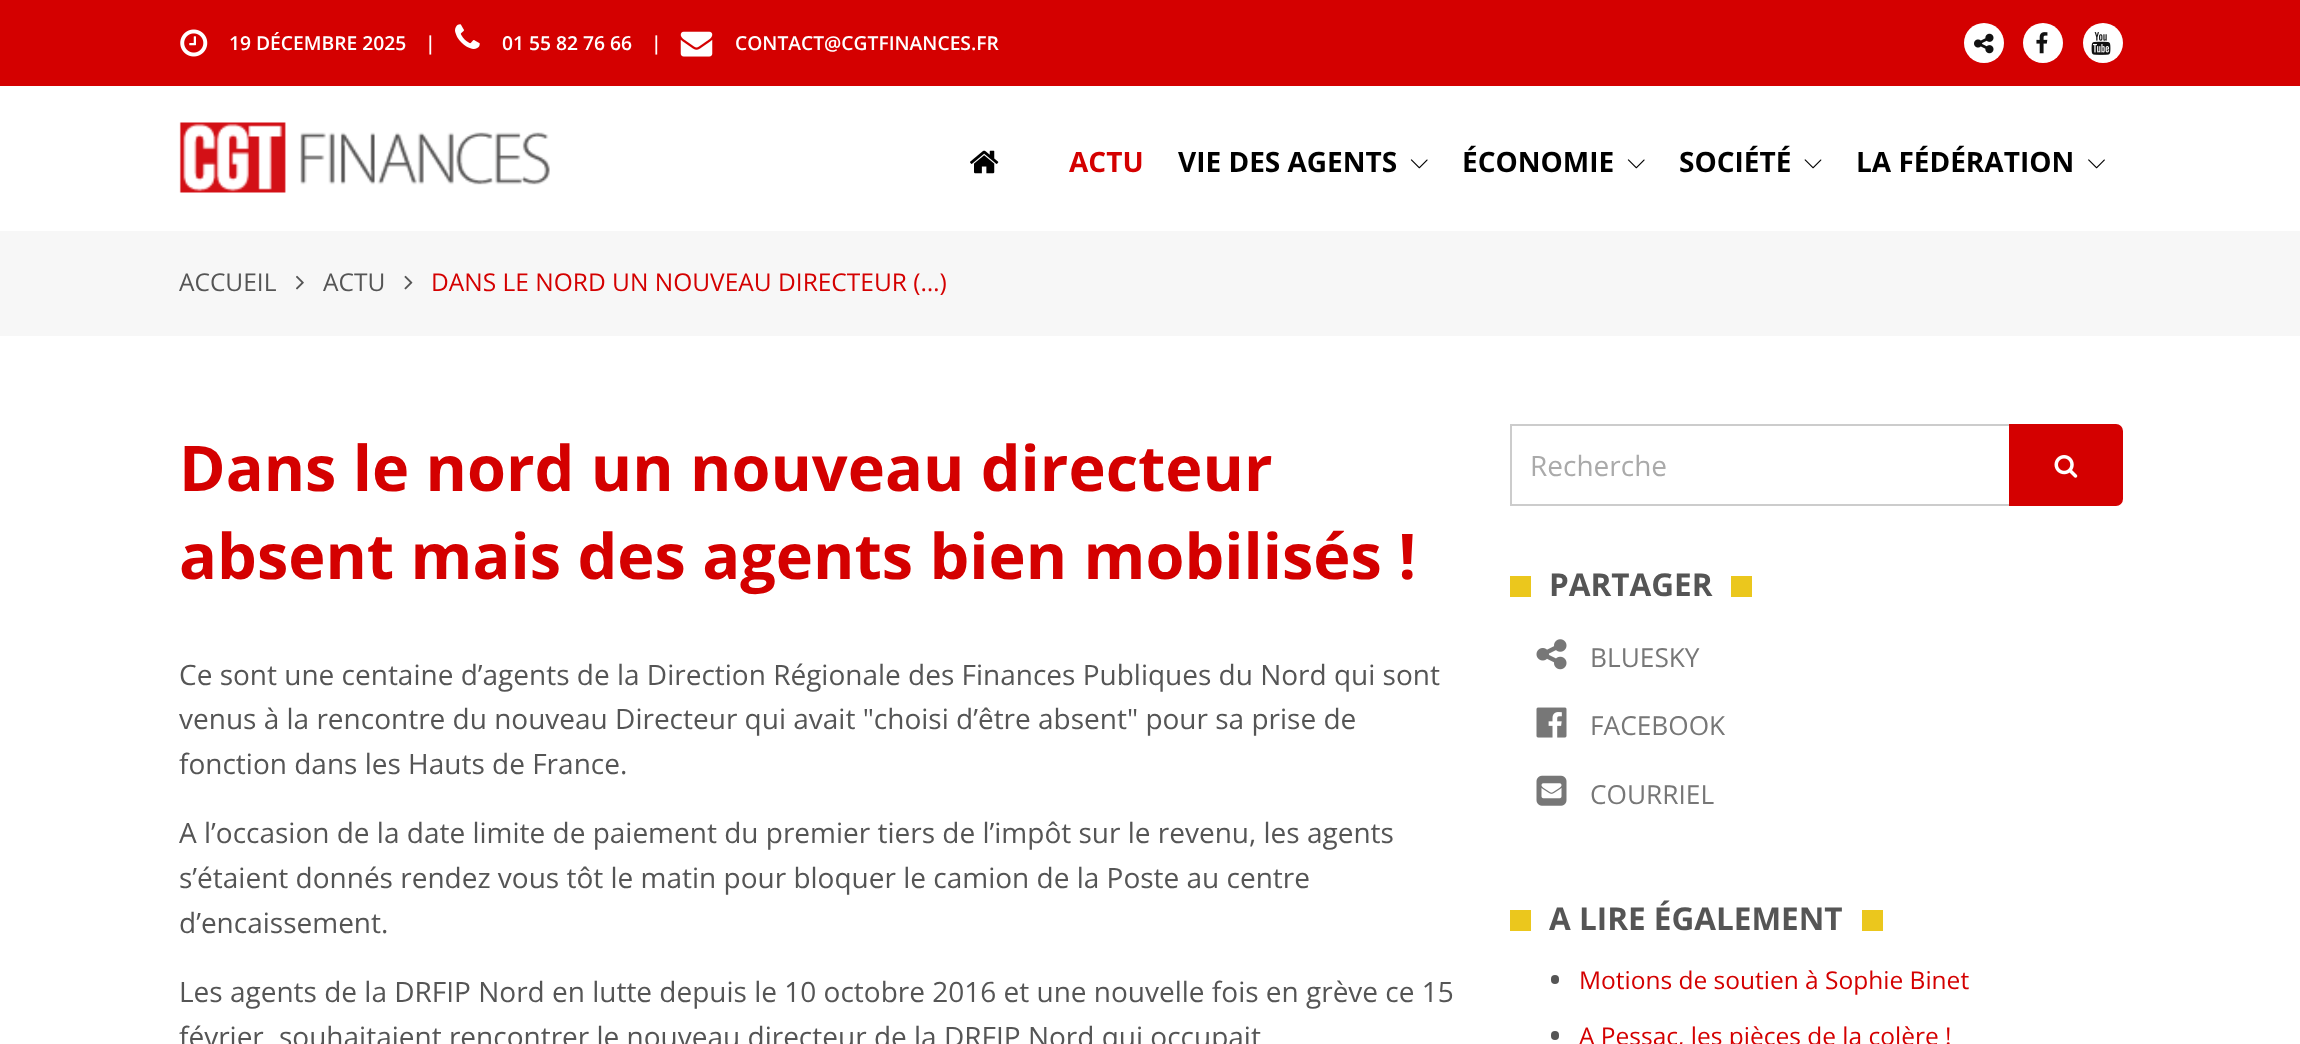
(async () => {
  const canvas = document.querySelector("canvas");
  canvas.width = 2300;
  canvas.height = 1044;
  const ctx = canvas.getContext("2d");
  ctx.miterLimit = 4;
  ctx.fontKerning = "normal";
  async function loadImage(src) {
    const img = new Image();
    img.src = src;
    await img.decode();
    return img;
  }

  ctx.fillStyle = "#ffffff";
  ctx.fillRect(0, 0, 2300, 1044);
  ctx.fillStyle = "#d40000";
  ctx.fillRect(0, 0, 2300, 86);
  ctx.drawImage(await loadImage("img/1.png"), 180, 29, 28, 28);
  ctx.drawImage(await loadImage("img/2.png"), 455, 24, 25, 25);
  ctx.drawImage(await loadImage("img/3.png"), 680, 31, 33, 26);
  ctx.fillStyle = "#ffffff";
  ctx.beginPath();
  ctx.arc(1984, 43, 20, 0, Math.PI * 2);
  ctx.fill();
  ctx.drawImage(await loadImage("img/4.png"), 1974, 33, 20, 21);
  ctx.beginPath();
  ctx.arc(2043, 43, 20, 0, Math.PI * 2);
  ctx.fill();
  ctx.drawImage(await loadImage("img/5.png"), 2036, 32, 12, 22);
  ctx.beginPath();
  ctx.arc(2103, 43, 20, 0, Math.PI * 2);
  ctx.fill();
  ctx.drawImage(await loadImage("img/6.png"), 2091, 32, 20, 23);
  ctx.drawImage(await loadImage("img/7.png"), 179, 122, 371, 71);
  ctx.drawImage(await loadImage("img/8.png"), 970, 150, 29, 24);
  ctx.drawImage(await loadImage("img/9.png"), 1410, 159, 18, 10);
  ctx.drawImage(await loadImage("img/9.png"), 1627, 159, 18, 10);
  ctx.drawImage(await loadImage("img/10.png"), 1804, 159, 18, 10);
  ctx.drawImage(await loadImage("img/11.png"), 2088, 159, 17, 10);
  ctx.fillStyle = "#f7f7f7";
  ctx.fillRect(0, 231, 2300, 105);
  ctx.drawImage(await loadImage("img/12.png"), 296, 275, 8, 15);
  ctx.drawImage(await loadImage("img/13.png"), 404, 275, 9, 15);
  ctx.strokeStyle = "#cccccc";
  ctx.lineWidth = 2;
  ctx.strokeRect(1511, 425, 499, 80);
  ctx.fillStyle = "#d40000";
  ctx.beginPath();
  ctx.roundRect(2010, 425, 112, 80, [0, 6, 6, 0]);
  ctx.fill();
  ctx.strokeStyle = "#d40000";
  ctx.stroke();
  ctx.drawImage(await loadImage("img/14.png"), 2054, 455, 24, 23);
  ctx.fillStyle = "#ebc71d";
  ctx.fillRect(1510, 576, 21, 21);
  ctx.fillRect(1731, 576, 21, 21);
  ctx.drawImage(await loadImage("img/15.png"), 1536, 639, 31, 31);
  ctx.drawImage(await loadImage("img/16.png"), 1536, 707, 31, 31);
  ctx.drawImage(await loadImage("img/17.png"), 1536, 775, 31, 31);
  ctx.fillRect(1510, 910, 21, 21);
  ctx.fillRect(1862, 910, 21, 21);
  ctx.fillStyle = "#555555";
  ctx.beginPath();
  ctx.roundRect(1551, 975, 8, 9, 4);
  ctx.fill();
  ctx.beginPath();
  ctx.roundRect(1551, 1031, 8, 9, 4);
  ctx.fill();
  ctx.font = "600 19.25px Open Sans";
  ctx.fillStyle = "#ffffff";
  for (const [text, x, y] of [
    ["19 DÉCEMBRE 2025", 229, 50],
    ["|", 425, 50],
    ["01 55 82 76 66", 502, 50],
    ["|", 651, 50],
    ["CONTACT@CGTFINANCES.FR", 735, 50],
  ]) {
    ctx.fillText(text, x, y);
  }
  ctx.font = "bold 28px Open Sans";
  ctx.fillStyle = "#d40000";
  ctx.fillText("ACTU", 1069, 172);
  ctx.fillStyle = "#000000";
  for (const [text, x, y] of [
    ["VIE DES AGENTS", 1178, 172],
    ["ÉCONOMIE", 1462, 172],
    ["SOCIÉTÉ", 1679, 172],
    ["LA FÉDÉRATION", 1856, 172],
  ]) {
    ctx.fillText(text, x, y);
  }
  ctx.font = "24.5px Open Sans";
  ctx.fillStyle = "#555555";
  ctx.fillText("ACCUEIL", 179, 291);
  ctx.fillText("ACTU", 323, 291);
  ctx.fillStyle = "#d40000";
  ctx.fillText("DANS LE NORD UN NOUVEAU DIRECTEUR (…)", 431, 291);
  ctx.font = "bold 63px Open Sans";
  ctx.fillText("Dans le nord un nouveau directeur", 179, 491);
  ctx.fillText("absent mais des agents bien mobilisés !", 179, 579);
  ctx.font = "28px Open Sans";
  ctx.fillStyle = "#555555";
  for (const [text, x, y] of [
    ["Ce sont une centaine d’agents de la Direction Régionale des Finances Publiques du Nord qui sont", 179, 685],
    ["venus à la rencontre du nouveau Directeur qui avait \"choisi d’être absent\" pour sa prise de", 179, 729],
    ["fonction dans les Hauts de France.", 179, 774],
    ["A l’occasion de la date limite de paiement du premier tiers de l’impôt sur le revenu, les agents", 179, 843],
    ["s’étaient donnés rendez vous tôt le matin pour bloquer le camion de la Poste au centre", 179, 888],
    ["d’encaissement.", 179, 933],
    ["Les agents de la DRFIP Nord en lutte depuis le 10 octobre 2016 et une nouvelle fois en grève ce 15", 179, 1002],
    ["février", 179, 1047],
    ["souhaitaient rencontrer le nouveau directeur de la DRFIP Nord qui occupait", 279, 1047],
  ]) {
    ctx.fillText(text, x, y);
  }
  ctx.fillStyle = "#aaaaaa";
  ctx.fillText("Recherche", 1530, 476);
  ctx.font = "bold 31.5px Open Sans";
  ctx.fillStyle = "#555555";
  ctx.fillText("PARTAGER", 1549, 596);
  ctx.font = "26.25px Open Sans";
  ctx.fillStyle = "#777777";
  for (const [text, x, y] of [
    ["BLUESKY", 1590, 667],
    ["FACEBOOK", 1590, 735],
    ["COURRIEL", 1590, 804],
  ]) {
    ctx.fillText(text, x, y);
  }
  ctx.font = "bold 31.5px Open Sans";
  ctx.fillStyle = "#555555";
  ctx.fillText("A LIRE ÉGALEMENT", 1549, 930);
  ctx.font = "24.5px Open Sans";
  ctx.fillStyle = "#d40000";
  ctx.fillText("Motions de soutien à Sophie Binet", 1579, 989);
  ctx.fillText("A Pessac, les pièces de la colère !", 1579, 1045);
})();
